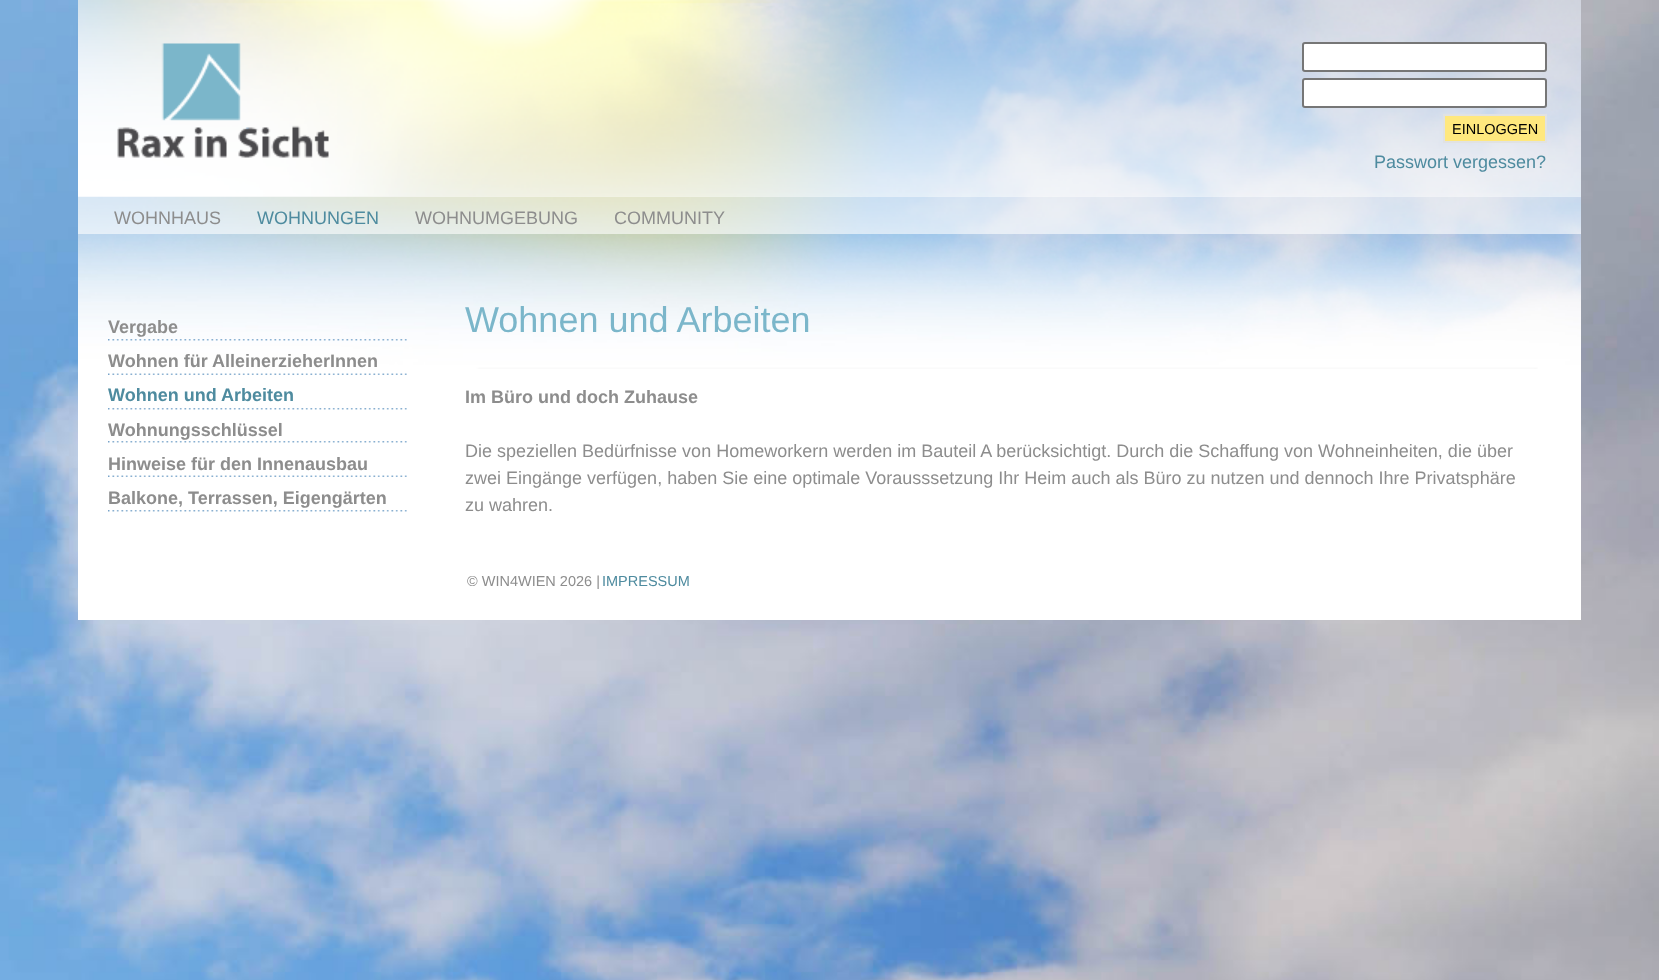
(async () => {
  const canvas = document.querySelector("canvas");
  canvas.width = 1659;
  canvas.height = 980;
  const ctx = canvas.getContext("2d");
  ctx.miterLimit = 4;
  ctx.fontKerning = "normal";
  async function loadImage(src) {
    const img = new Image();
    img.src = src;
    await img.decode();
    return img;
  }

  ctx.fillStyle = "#ffffff";
  ctx.fillRect(0, 0, 1659, 980);
  ctx.drawImage(await loadImage("img/1.png"), 0, 0, 1659, 980);
  ctx.fillRect(78, 196, 1503, 424);
  ctx.drawImage(await loadImage("img/4.png"), 78, 196, 1503, 38);
  ctx.drawImage(await loadImage("img/2.png"), 78, 0, 1503, 197);
  ctx.drawImage(await loadImage("img/3.png"), 117, 43, 212, 115);
  ctx.beginPath();
  ctx.roundRect(1303, 43, 243, 28, 2);
  ctx.fill();
  ctx.strokeStyle = "#767676";
  ctx.lineWidth = 2;
  ctx.stroke();
  ctx.beginPath();
  ctx.roundRect(1303, 79, 243, 28, 2);
  ctx.fill();
  ctx.stroke();
  ctx.fillStyle = "#ffe87e";
  ctx.beginPath();
  ctx.rect(1444, 115, 102, 27);
  ctx.fill();
  ctx.strokeStyle = "#e1e2e2";
  ctx.stroke();
  ctx.drawImage(await loadImage("img/5.png"), 78, 234, 1503, 135);
  ctx.drawImage(await loadImage("img/6.png"), 108, 339, 299, 2);
  ctx.drawImage(await loadImage("img/7.png"), 108, 373, 299, 2);
  ctx.drawImage(await loadImage("img/8.png"), 108, 408, 299, 2);
  ctx.drawImage(await loadImage("img/8.png"), 108, 441, 299, 2);
  ctx.drawImage(await loadImage("img/7.png"), 108, 475, 299, 2);
  ctx.drawImage(await loadImage("img/8.png"), 108, 510, 299, 2);
  ctx.font = "14.5px Liberation Sans";
  ctx.fillStyle = "#000000";
  ctx.fillText("EINLOGGEN", 1452, 134);
  ctx.font = "18px Liberation Sans";
  ctx.fillStyle = "#4e8b9f";
  ctx.fillText("Passwort vergessen?", 1374, 168);
  ctx.fillStyle = "#8d8d8d";
  ctx.fillText("WOHNHAUS", 114, 224);
  ctx.fillStyle = "#4e8b9f";
  ctx.fillText("WOHNUNGEN", 257, 224);
  ctx.fillStyle = "#8d8d8d";
  ctx.fillText("WOHNUMGEBUNG", 415, 224);
  ctx.fillText("COMMUNITY", 614, 224);
  ctx.font = "bold 18px Liberation Sans";
  ctx.fillText("Vergabe", 108, 333);
  ctx.fillText("Wohnen für AlleinerzieherInnen", 108, 367);
  ctx.fillStyle = "#4e8b9f";
  ctx.fillText("Wohnen und Arbeiten", 108, 401);
  ctx.fillStyle = "#8d8d8d";
  for (const [text, x, y] of [
    ["Wohnungsschlüssel", 108, 436],
    ["Hinweise für den Innenausbau", 108, 470],
    ["Balkone, Terrassen, Eigengärten", 108, 504],
  ]) {
    ctx.fillText(text, x, y);
  }
  ctx.font = "36px Liberation Sans";
  ctx.fillStyle = "#7bb6ca";
  ctx.fillText("Wohnen und Arbeiten", 465, 332);
  ctx.font = "bold 18px Liberation Sans";
  ctx.fillStyle = "#8d8d8d";
  ctx.fillText("Im Büro und doch Zuhause", 465, 403);
  ctx.font = "18px Liberation Sans";
  for (const [text, x, y] of [
    ["Die speziellen Bedürfnisse von Homeworkern werden im Bauteil A berücksichtigt. Durch die Schaffung von Wohneinheiten, die über", 465, 457],
    ["zwei Eingänge verfügen, haben Sie eine optimale Vorausssetzung Ihr Heim auch als Büro zu nutzen und dennoch Ihre Privatsphäre", 465, 484],
    ["zu wahren.", 465, 511],
  ]) {
    ctx.fillText(text, x, y);
  }
  ctx.font = "14.5px Liberation Sans";
  ctx.fillText("© WIN4WIEN 2026 |", 467, 586);
  ctx.fillStyle = "#4e8b9f";
  ctx.fillText("IMPRESSUM", 602, 586);
})();
